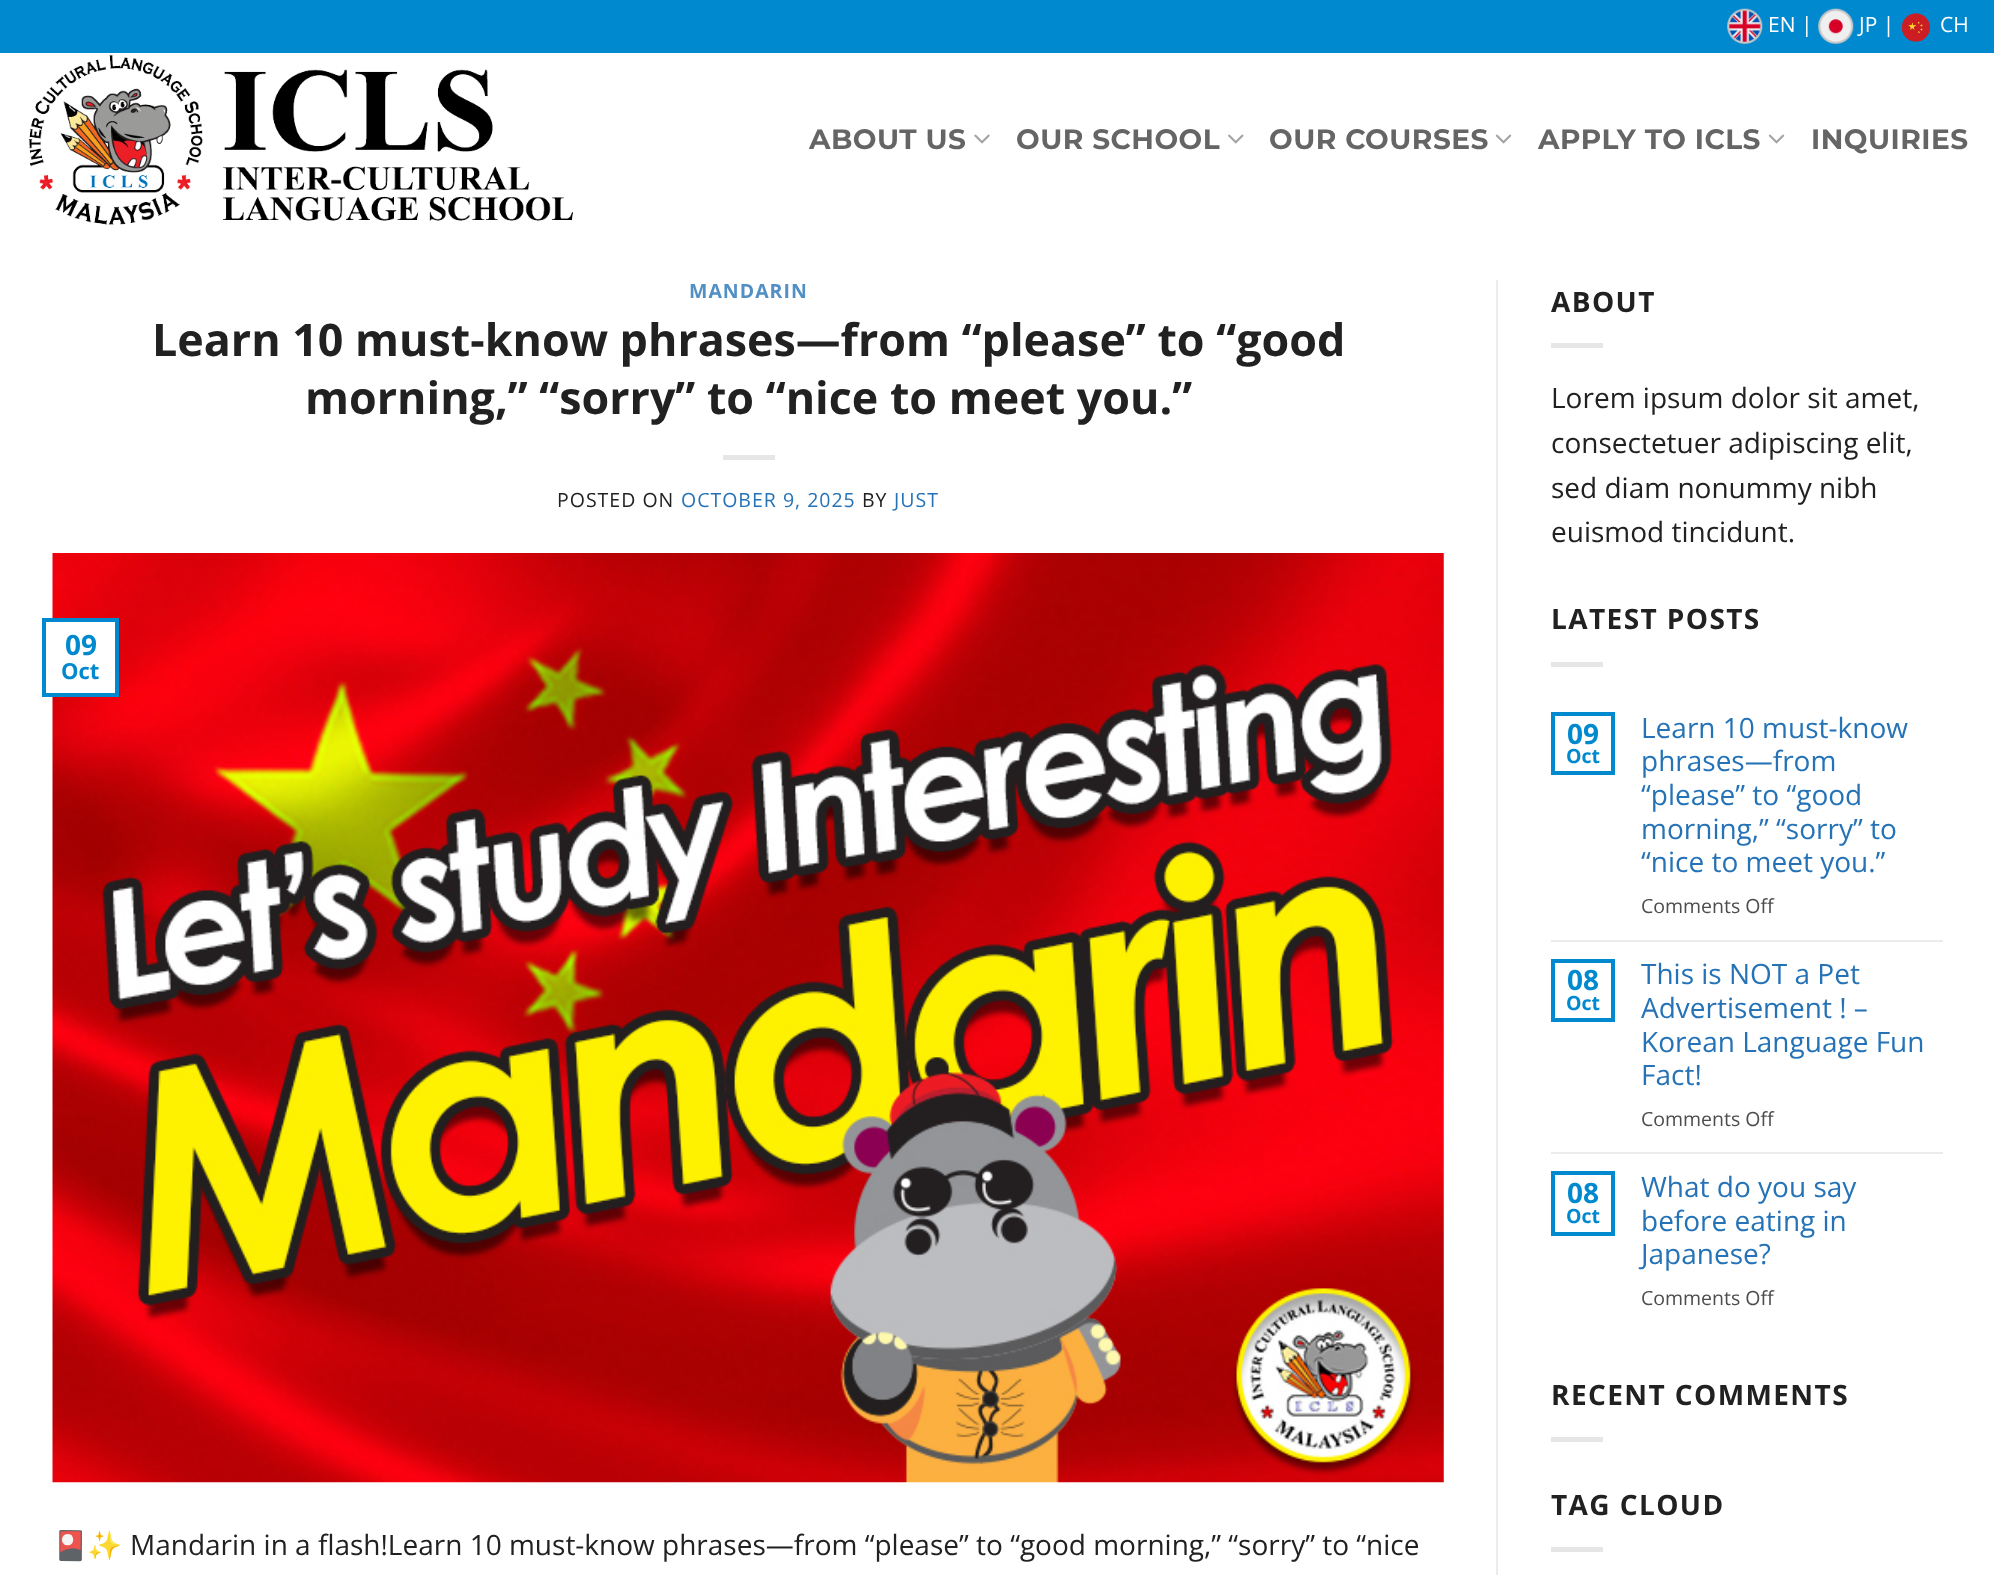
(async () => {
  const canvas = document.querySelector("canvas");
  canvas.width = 1994;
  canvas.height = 1575;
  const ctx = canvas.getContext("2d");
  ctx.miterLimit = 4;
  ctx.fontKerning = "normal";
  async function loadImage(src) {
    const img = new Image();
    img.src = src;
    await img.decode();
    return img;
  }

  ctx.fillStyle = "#ffffff";
  ctx.fillRect(0, 0, 1994, 1575);
  ctx.fillStyle = "#0089cf";
  ctx.fillRect(0, 0, 1994, 53);
  ctx.drawImage(await loadImage("img/1.png"), 1727, 8, 36, 36);
  ctx.drawImage(await loadImage("img/2.png"), 1818, 8, 36, 36);
  ctx.drawImage(await loadImage("img/3.png"), 1902, 13, 28, 29);
  ctx.drawImage(await loadImage("img/4.png"), 28, 54, 545, 172);
  ctx.drawImage(await loadImage("img/5.png"), 974, 134, 16, 10);
  ctx.drawImage(await loadImage("img/6.png"), 1228, 134, 16, 10);
  ctx.drawImage(await loadImage("img/7.png"), 1495, 134, 17, 10);
  ctx.drawImage(await loadImage("img/7.png"), 1768, 134, 17, 10);
  ctx.fillStyle = "#e6e6e6";
  ctx.fillRect(723, 455, 52, 5);
  ctx.drawImage(await loadImage("img/8.png"), 52, 553, 1392, 930);
  ctx.fillStyle = "#ffffff";
  ctx.fillRect(52, 622, 63, 71);
  ctx.strokeStyle = "#0089cf";
  ctx.lineWidth = 4;
  ctx.strokeRect(44, 620, 73, 75);
  for (const [x, y, w, h, color] of [
    [1496, 280, 2, 1295, "#ececec"],
    [1551, 343, 52, 5, "#e6e6e6"],
    [1551, 662, 52, 5, "#e6e6e6"],
  ]) {
    ctx.fillStyle = color;
    ctx.fillRect(x, y, w, h);
  }
  ctx.strokeRect(1553, 714, 60, 59);
  ctx.fillStyle = "#ececec";
  ctx.fillRect(1551, 940, 392, 2);
  ctx.strokeRect(1553, 961, 60, 59);
  ctx.fillRect(1551, 1152, 392, 2);
  ctx.strokeRect(1553, 1173, 60, 61);
  ctx.fillStyle = "#e6e6e6";
  ctx.fillRect(1551, 1437, 52, 5);
  ctx.fillRect(1551, 1547, 52, 5);
  ctx.font = "21px Open Sans";
  ctx.fillStyle = "#ffffff";
  for (const [text, x, y] of [
    ["EN |", 1768, 32],
    ["JP |", 1859, 32],
    ["CH", 1940, 32],
  ]) {
    ctx.fillText(text, x, y);
  }
  ctx.letterSpacing = "0.5px";
  ctx.font = "100 28px Montserrat";
  ctx.fillStyle = "#656565";
  for (const [text, x, y] of [
    ["ABOUT US", 809, 149],
    ["OUR SCHOOL", 1016, 149],
    ["OUR COURSES", 1269, 149],
    ["APPLY TO ICLS", 1538, 149],
    ["INQUIRIES", 1811, 149],
  ]) {
    ctx.fillText(text, x, y);
  }
  ctx.letterSpacing = "1px";
  ctx.font = "bold 19.5px Open Sans";
  ctx.fillStyle = "#518fc5";
  ctx.fillText("MANDARIN", 689, 298);
  ctx.letterSpacing = "0px";
  ctx.font = "bold 44.8px Open Sans";
  ctx.fillStyle = "#212121";
  ctx.fillText("Learn 10 must-know phrases—from “please” to “good", 152, 356);
  ctx.fillText("morning,” “sorry” to “nice to meet you.”", 305, 414);
  ctx.letterSpacing = "1px";
  ctx.font = "19.5px Open Sans";
  ctx.fillText("POSTED ON", 557, 507);
  ctx.fillStyle = "#2573b6";
  ctx.fillText("OCTOBER 9, 2025", 681, 507);
  ctx.fillStyle = "#212121";
  ctx.fillText("BY", 862, 507);
  ctx.fillStyle = "#2573b6";
  ctx.fillText("JUST", 894, 507);
  ctx.letterSpacing = "0px";
  ctx.font = "bold 28px Open Sans";
  ctx.fillStyle = "#0089cf";
  ctx.fillText("09", 65, 655);
  ctx.font = "bold 22px Open Sans";
  ctx.fillText("Oct", 61, 679);
  ctx.font = "28px Noto Color Emoji";
  ctx.fillStyle = "#212121";
  ctx.fillText("🎴✨", 53, 1555);
  ctx.font = "28px Open Sans";
  ctx.fillText("Mandarin in a flash!Learn 10 must-know phrases—from “please” to “good morning,” “sorry” to “nice", 130, 1555);
  ctx.letterSpacing = "1.4px";
  ctx.font = "bold 28px Open Sans";
  ctx.fillText("ABOUT", 1551, 312);
  ctx.letterSpacing = "0px";
  ctx.font = "28px Open Sans";
  for (const [text, x, y] of [
    ["Lorem ipsum dolor sit amet,", 1551, 408],
    ["consectetuer adipiscing elit,", 1551, 453],
    ["sed diam nonummy nibh", 1551, 498],
    ["euismod tincidunt.", 1551, 542],
  ]) {
    ctx.fillText(text, x, y);
  }
  ctx.letterSpacing = "1.4px";
  ctx.font = "bold 28px Open Sans";
  ctx.fillText("LATEST POSTS", 1551, 629);
  ctx.letterSpacing = "0px";
  ctx.fillStyle = "#0089cf";
  ctx.fillText("09", 1567, 744);
  ctx.font = "bold 19.5px Open Sans";
  ctx.fillText("Oct", 1566, 763);
  ctx.font = "28px Open Sans";
  ctx.fillStyle = "#2573b6";
  for (const [text, x, y] of [
    ["Learn 10 must-know", 1641, 738],
    ["phrases—from", 1641, 771],
    ["“please” to “good", 1641, 805],
    ["morning,” “sorry” to", 1641, 839],
    ["“nice to meet you.”", 1641, 872],
  ]) {
    ctx.fillText(text, x, y);
  }
  ctx.font = "19.5px Open Sans";
  ctx.fillStyle = "#4d4d4d";
  ctx.fillText("Comments Off", 1641, 913);
  ctx.font = "bold 28px Open Sans";
  ctx.fillStyle = "#0089cf";
  ctx.fillText("08", 1567, 990);
  ctx.font = "bold 19.5px Open Sans";
  ctx.fillText("Oct", 1566, 1010);
  ctx.font = "28px Open Sans";
  ctx.fillStyle = "#2573b6";
  for (const [text, x, y] of [
    ["This is NOT a Pet", 1641, 984],
    ["Advertisement ! –", 1641, 1018],
    ["Korean Language Fun", 1641, 1052],
    ["Fact!", 1641, 1085],
  ]) {
    ctx.fillText(text, x, y);
  }
  ctx.font = "19.5px Open Sans";
  ctx.fillStyle = "#4d4d4d";
  ctx.fillText("Comments Off", 1641, 1126);
  ctx.font = "bold 28px Open Sans";
  ctx.fillStyle = "#0089cf";
  ctx.fillText("08", 1567, 1203);
  ctx.font = "bold 19.5px Open Sans";
  ctx.fillText("Oct", 1566, 1223);
  ctx.font = "28px Open Sans";
  ctx.fillStyle = "#2573b6";
  for (const [text, x, y] of [
    ["What do you say", 1641, 1197],
    ["before eating in", 1641, 1231],
    ["Japanese?", 1641, 1264],
  ]) {
    ctx.fillText(text, x, y);
  }
  ctx.font = "19.5px Open Sans";
  ctx.fillStyle = "#4d4d4d";
  ctx.fillText("Comments Off", 1641, 1305);
  ctx.letterSpacing = "1.4px";
  ctx.font = "bold 28px Open Sans";
  ctx.fillStyle = "#212121";
  ctx.fillText("RECENT COMMENTS", 1551, 1405);
  ctx.fillText("TAG CLOUD", 1551, 1515);
})();
